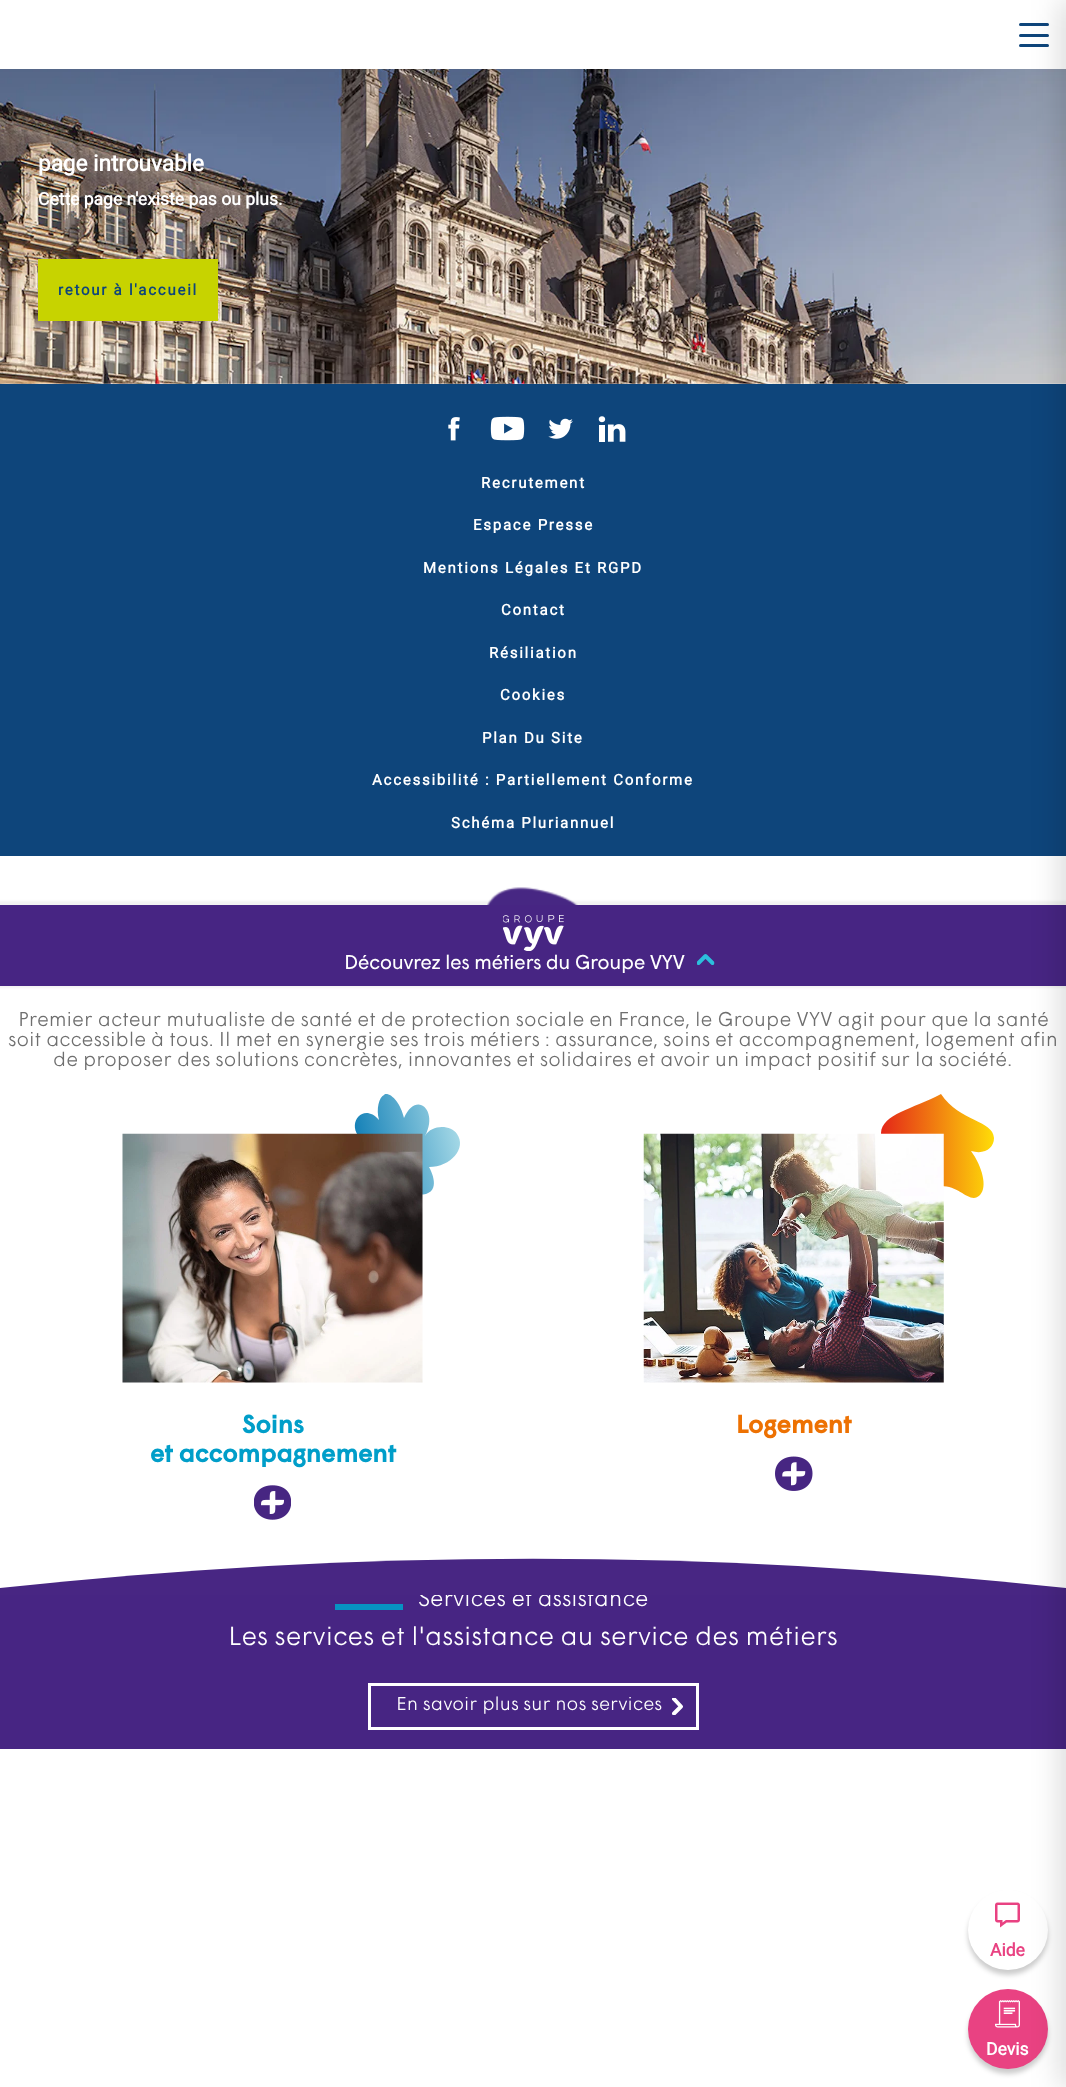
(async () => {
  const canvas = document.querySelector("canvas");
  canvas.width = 1066;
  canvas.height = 2087;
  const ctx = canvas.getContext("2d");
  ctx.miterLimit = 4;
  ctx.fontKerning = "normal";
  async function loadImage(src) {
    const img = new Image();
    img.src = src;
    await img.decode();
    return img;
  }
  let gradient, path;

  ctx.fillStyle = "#ffffff";
  ctx.fillRect(0, 0, 1066, 2087);
  ctx.drawImage(await loadImage("img/1.png"), 0, 69, 1066, 315);
  ctx.fillStyle = "#c7d300";
  ctx.fillRect(38, 259, 180, 62);
  ctx.fillStyle = "#0e457b";
  ctx.beginPath();
  ctx.roundRect(1019, 23, 30, 3, 1.5);
  ctx.fill();
  ctx.beginPath();
  ctx.roundRect(1019, 34, 30, 3, 1.5);
  ctx.fill();
  ctx.beginPath();
  ctx.roundRect(1019, 44, 30, 3, 1.5);
  ctx.fill();
  ctx.fillRect(0, 384, 1066, 472);
  ctx.drawImage(await loadImage("img/2.png"), 448, 417, 12, 24);
  ctx.drawImage(await loadImage("img/3.png"), 490, 416, 35, 25);
  ctx.drawImage(await loadImage("img/4.png"), 548, 418, 25, 21);
  ctx.drawImage(await loadImage("img/5.png"), 598, 416, 28, 26);
  ctx.fillStyle = "rgba(0, 0, 0, 0.2)";
  ctx.filter = "blur(2.5px)";
  ctx.beginPath();
  ctx.roundRect(968, 1895, 80, 80, 40);
  ctx.fill();
  ctx.filter = "none";
  ctx.fillStyle = "#ffffff";
  ctx.beginPath();
  ctx.arc(1008, 1930, 40, 0, Math.PI * 2);
  ctx.fill();
  ctx.drawImage(await loadImage("img/6.png"), 995, 1902, 25, 26);
  ctx.fillStyle = "rgba(0, 0, 0, 0.2)";
  ctx.filter = "blur(2.5px)";
  ctx.beginPath();
  ctx.roundRect(968, 1994, 80, 80, 40);
  ctx.fill();
  ctx.filter = "none";
  ctx.fillStyle = "#e94282";
  ctx.beginPath();
  ctx.arc(1008, 2029, 40, 0, Math.PI * 2);
  ctx.fill();
  ctx.drawImage(await loadImage("img/7.png"), 995, 2000, 25, 28);
  ctx.fillStyle = "rgba(0, 0, 0, 0.05)";
  ctx.filter = "blur(1px)";
  ctx.beginPath();
  ctx.rect(-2, 901, 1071, 87);
  ctx.fill();
  ctx.filter = "none";
  ctx.fillStyle = "#472583";
  ctx.fillRect(0, 905, 1066, 81);
  ctx.drawImage(await loadImage("img/8.png"), 487, 887, 91, 18);
  ctx.drawImage(await loadImage("img/9.png"), 503, 915, 61, 36);
  ctx.save();
  path = new Path2D("M697 969V951.5H714.5V969Z");
  ctx.clip(path);
  path = new Path2D("M698.5 963L705.5 956L712.5 963");
  ctx.strokeStyle = "#2cbfdc";
  ctx.lineWidth = 3.9;
  ctx.lineCap = "round";
  ctx.lineJoin = "round";
  ctx.stroke(path);
  ctx.restore();
  gradient = ctx.createLinearGradient(347, 1158, 458, 1132);
  gradient.addColorStop(0, "#0175b1");
  gradient.addColorStop(1, "#a4d8e6");
  ctx.fillStyle = gradient;
  path = new Path2D("M457 1134C451 1125 432 1124 425 1136C439 1110 416 1090 404 1118C401 1104 392 1093 385 1094L384 1095C379 1097 376 1109 379 1120C361 1099 340 1131 370 1145C357 1142 341 1153 350 1167C354 1173 364 1177 373 1170C365 1183 370 1201 379 1204C392 1208 400 1188 401 1173C404 1186 418 1197 426 1194C442 1189 429 1167 429 1167C451 1167 467 1148 457 1134");
  ctx.fill(path);
  ctx.drawImage(await loadImage("img/10.png"), 122, 1133, 301, 250);
  ctx.drawImage(await loadImage("img/11.png"), 254, 1485, 37, 35);
  gradient = ctx.createLinearGradient(881, 1147, 994, 1147);
  gradient.addColorStop(0, "#e42618");
  gradient.addColorStop(1, "#ffdd08");
  ctx.fillStyle = gradient;
  path = new Path2D("M994 1138C993 1120 960 1122 941 1094C913 1109 882 1114 881 1133C881 1144 894 1148 903 1143C896 1152 891 1164 890 1176C887 1194 893 1208 912 1196C920 1191 928 1186 941 1186C961 1186 970 1205 980 1195C988 1187 982 1166 971 1151C985 1155 994 1148 994 1138");
  ctx.fill(path);
  ctx.drawImage(await loadImage("img/12.png"), 643, 1133, 301, 250);
  ctx.drawImage(await loadImage("img/13.png"), 775, 1456, 38, 35);
  ctx.fillStyle = "#472583";
  ctx.fillRect(0, 1595, 1066, 154);
  ctx.fillStyle = "#0792c2";
  ctx.fillRect(335, 1604, 68, 6);
  ctx.strokeStyle = "#ffffff";
  ctx.lineWidth = 3;
  ctx.strokeRect(369.5, 1684.5, 328, 44);
  ctx.save();
  ctx.beginPath();
  ctx.rect(669, 1698, 17, 17);
  ctx.clip();
  path = new Path2D("M674 1699L681 1706.5L674 1713.5");
  ctx.lineWidth = 3.9;
  ctx.lineCap = "round";
  ctx.lineJoin = "round";
  ctx.stroke(path);
  ctx.restore();
  ctx.font = "bold 22.5px Roboto";
  ctx.fillStyle = "#ffffff";
  ctx.fillText("page introuvable", 38, 171);
  ctx.font = "bold 17.5px Roboto";
  ctx.fillText("Cette page n'existe pas ou plus.", 38, 205);
  ctx.letterSpacing = "1.75px";
  ctx.font = "bold 15px Roboto";
  ctx.fillStyle = "#0e457b";
  ctx.fillText("retour à l'accueil", 58, 295);
  ctx.fillStyle = "#ffffff";
  for (const [text, x, y] of [
    ["Recrutement", 481, 488],
    ["Espace Presse", 473, 530],
    ["Mentions Légales Et RGPD", 423, 573],
    ["Contact", 501, 615],
    ["Résiliation", 489, 658],
    ["Cookies", 500, 700],
    ["Plan Du Site", 482, 743],
    ["Accessibilité : Partiellement Conforme", 372, 785],
    ["Schéma Pluriannuel", 451, 828],
  ]) {
    ctx.fillText(text, x, y);
  }
  ctx.letterSpacing = "0px";
  ctx.font = "bold 17.5px Roboto";
  ctx.fillStyle = "#e94282";
  ctx.fillText("Aide", 990, 1956);
  ctx.fillStyle = "#ffffff";
  ctx.fillText("Devis", 986, 2055);
  ctx.letterSpacing = "-0.4px";
  ctx.font = "20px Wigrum";
  ctx.fillText("Découvrez les métiers du Groupe VYV", 344, 969);
  ctx.letterSpacing = "0px";
  ctx.font = "300 20px Wigrum";
  ctx.fillStyle = "#6f6f6f";
  for (const [text, x, y] of [
    ["Premier acteur mutualiste de santé et de protection sociale en France, le Groupe VYV agit pour que la santé", 18, 1026],
    ["soit accessible à tous. Il met en synergie ses trois métiers : assurance, soins et accompagnement, logement afin", 8, 1046],
    ["de proposer des solutions concrètes, innovantes et solidaires et avoir un impact positif sur la société.", 53, 1066],
  ]) {
    ctx.fillText(text, x, y);
  }
  ctx.font = "bold 25px Wigrum";
  ctx.fillStyle = "#009ec9";
  ctx.fillText("Soins", 242, 1433);
  ctx.fillText("et accompagnement", 150, 1462);
  ctx.fillStyle = "#ed7102";
  ctx.fillText("Logement", 736, 1433);
  ctx.font = "300 22.5px Wigrum";
  ctx.fillStyle = "#ffffff";
  ctx.fillText("Services et assistance", 418, 1606);
  ctx.save();
  ctx.beginPath();
  ctx.rect(0, 1558, 1066, 37);
  ctx.clip();
  ctx.fillStyle = "#482683";
  path = new Path2D("M1066 1598V1588C705 1549 361 1549 0 1588V1598Z");
  ctx.fill(path);
  ctx.restore();
  ctx.fillStyle = "rgba(0, 0, 0, 0.15)";
  ctx.filter = "blur(15px)";
  ctx.beginPath();
  ctx.rect(1061, 0, 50, 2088);
  ctx.fill();
  ctx.filter = "none";
  ctx.font = "300 26.25px Wigrum";
  ctx.fillStyle = "#ffffff";
  ctx.fillText("Les services et l'assistance au service des métiers", 228, 1645);
  ctx.font = "300 18.75px Wigrum";
  ctx.fillText("En savoir plus sur nos services", 396, 1710);
})();
